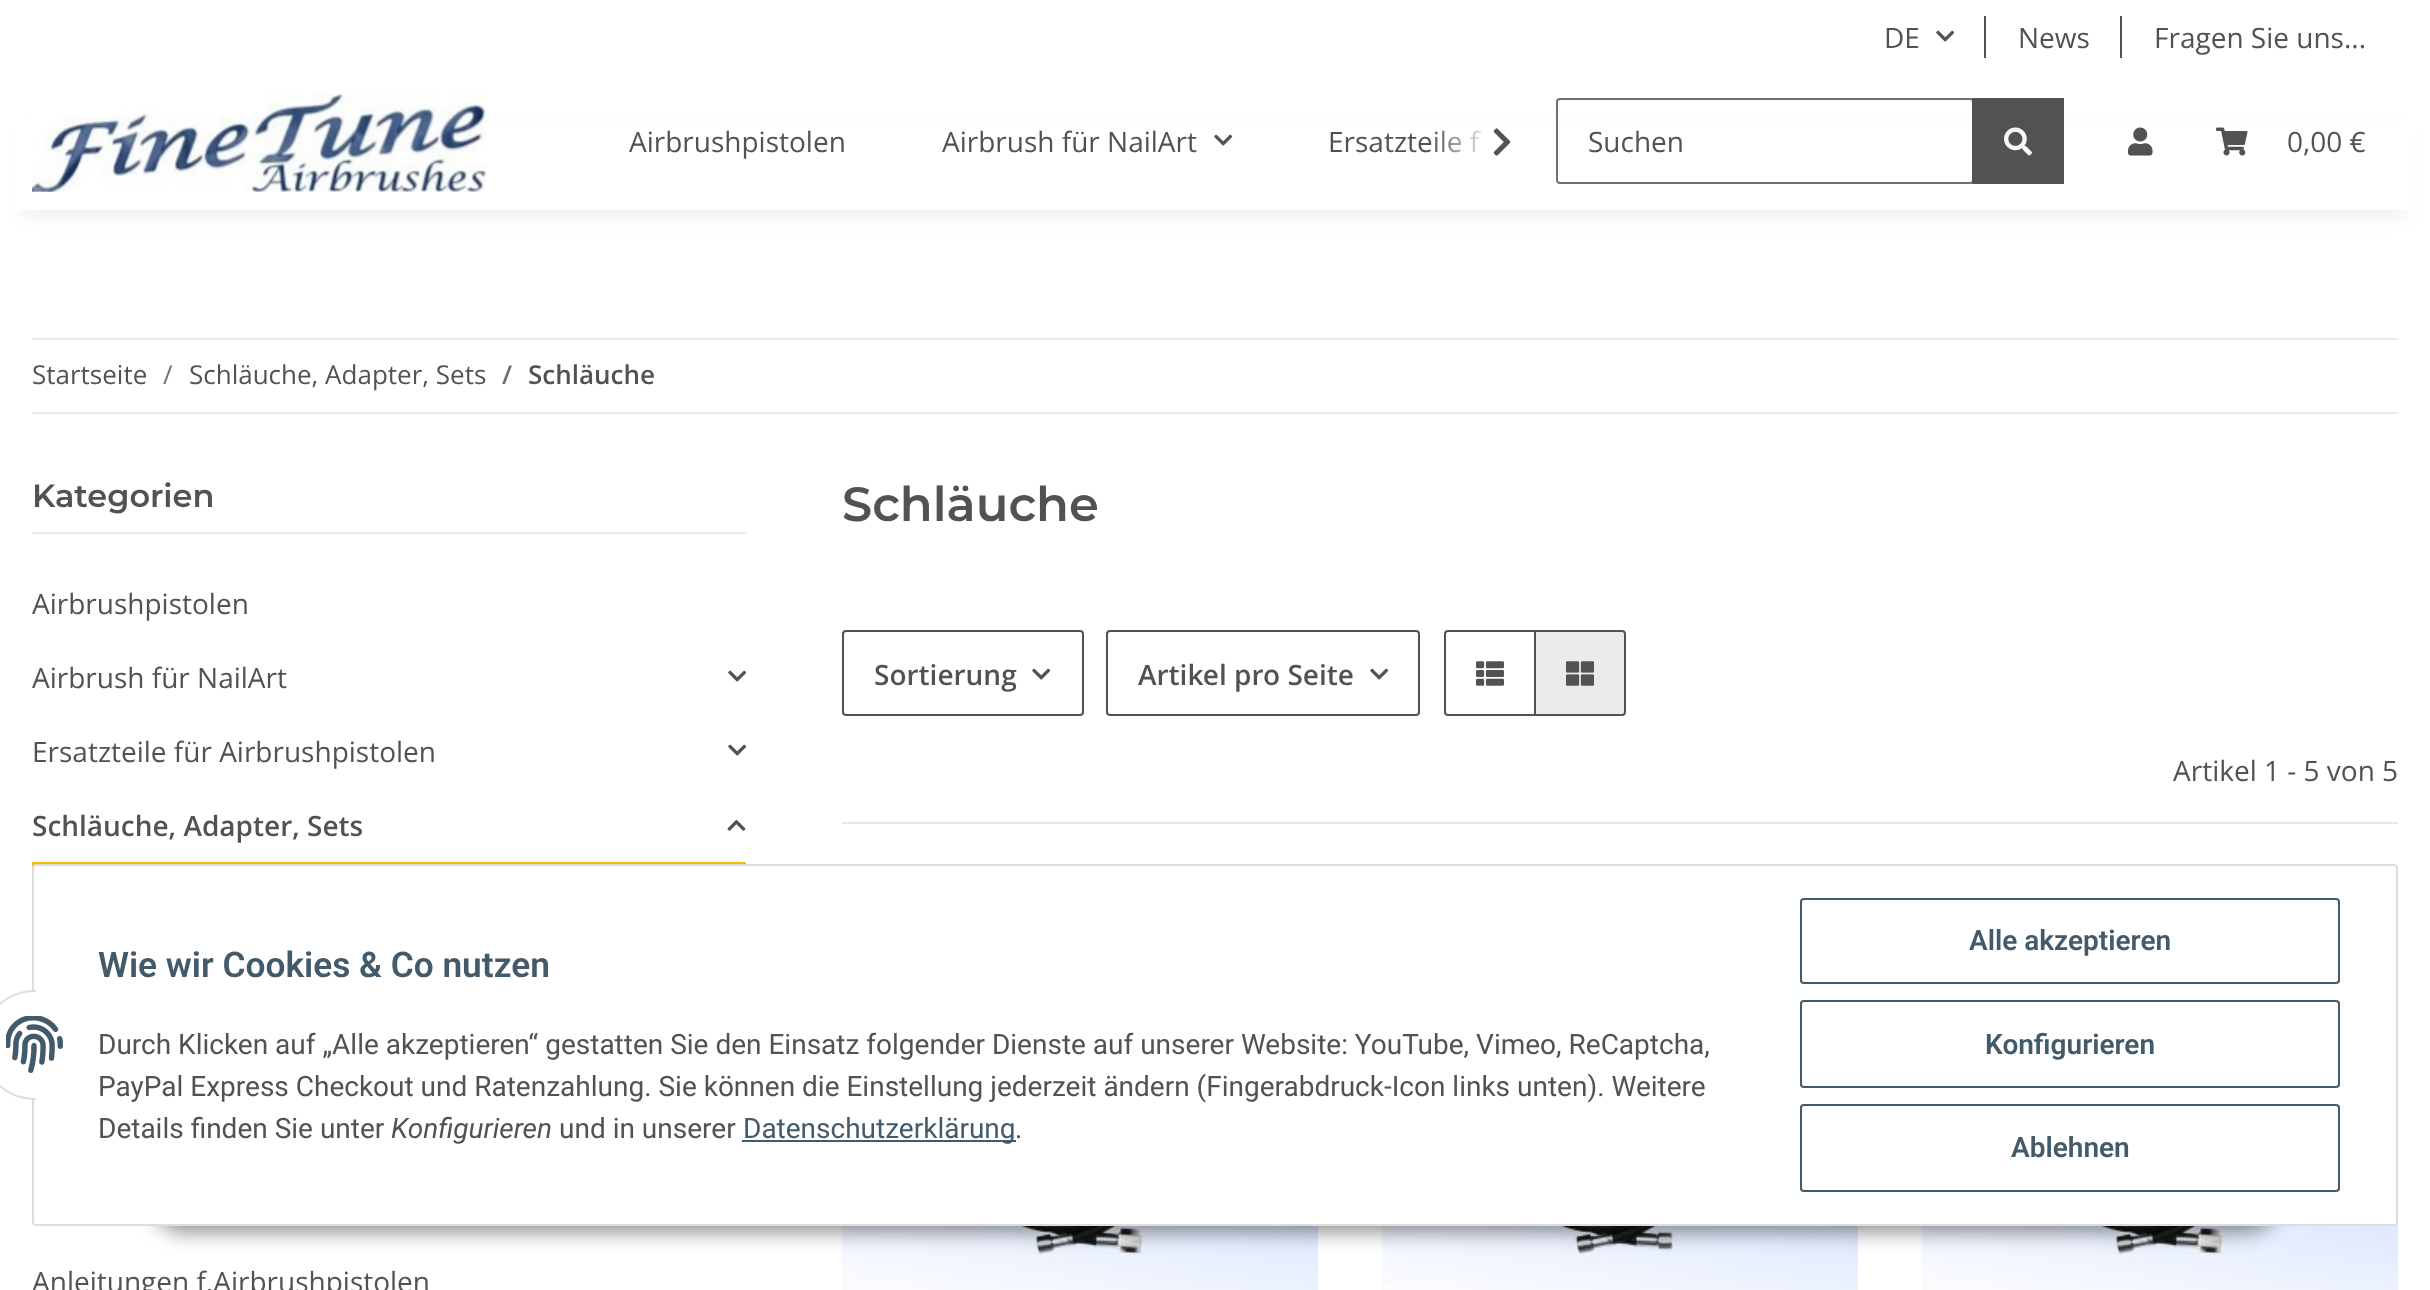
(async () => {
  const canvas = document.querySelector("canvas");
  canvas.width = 2430;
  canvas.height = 1290;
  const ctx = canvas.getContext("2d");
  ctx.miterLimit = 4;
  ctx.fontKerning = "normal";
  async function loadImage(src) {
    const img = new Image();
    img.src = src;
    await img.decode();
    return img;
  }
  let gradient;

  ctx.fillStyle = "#ffffff";
  ctx.fillRect(0, 0, 2430, 1290);
  ctx.drawImage(await loadImage("img/1.png"), 1936, 30, 19, 12);
  ctx.fillStyle = "#525252";
  ctx.fillRect(1984, 16, 2, 42);
  ctx.fillRect(2120, 16, 2, 42);
  ctx.fillStyle = "rgba(0, 0, 0, 0.06)";
  ctx.filter = "blur(9px)";
  ctx.beginPath();
  ctx.rect(24, 130, 2382, 88);
  ctx.fill();
  ctx.filter = "none";
  ctx.fillStyle = "#ffffff";
  ctx.fillRect(15, 121, 2400, 89);
  ctx.drawImage(await loadImage("img/2.png"), 32, 93, 454, 99);
  ctx.drawImage(await loadImage("img/3.png"), 1493, 128, 18, 28);
  ctx.drawImage(await loadImage("img/1.png"), 1214, 134, 19, 12);
  ctx.beginPath();
  ctx.roundRect(1557, 99, 416, 84, 3);
  ctx.strokeStyle = "#707070";
  ctx.lineWidth = 2;
  ctx.stroke();
  ctx.fillStyle = "#525252";
  ctx.fillRect(1972, 98, 92, 86);
  ctx.drawImage(await loadImage("img/4.png"), 2004, 127, 28, 29);
  ctx.drawImage(await loadImage("img/5.png"), 2128, 127, 25, 29);
  ctx.drawImage(await loadImage("img/6.png"), 2216, 127, 32, 29);
  for (const [x, y, w, h, color] of [
    [32, 338, 2366, 2, "#ebebeb"],
    [32, 412, 2366, 2, "#ebebeb"],
    [32, 532, 714, 2, "#ebebeb"],
  ]) {
    ctx.fillStyle = color;
    ctx.fillRect(x, y, w, h);
  }
  ctx.drawImage(await loadImage("img/1.png"), 728, 670, 19, 12);
  ctx.drawImage(await loadImage("img/1.png"), 728, 744, 19, 12);
  ctx.fillStyle = "#f8bf00";
  ctx.fillRect(32, 862, 714, 6);
  ctx.drawImage(await loadImage("img/7.png"), 727, 819, 19, 12);
  ctx.beginPath();
  ctx.roundRect(843, 631, 240, 84, 3);
  ctx.strokeStyle = "#525252";
  ctx.stroke();
  ctx.drawImage(await loadImage("img/1.png"), 1032, 668, 19, 12);
  ctx.beginPath();
  ctx.roundRect(1107, 631, 312, 84, 3);
  ctx.stroke();
  ctx.drawImage(await loadImage("img/1.png"), 1370, 668, 19, 12);
  ctx.beginPath();
  ctx.roundRect(1445, 631, 90, 84, [3, 0, 0, 3]);
  ctx.stroke();
  ctx.drawImage(await loadImage("img/8.png"), 1476, 661, 28, 25);
  ctx.fillStyle = "#ebebeb";
  ctx.beginPath();
  ctx.roundRect(1535, 631, 90, 84, [0, 3, 3, 0]);
  ctx.fill();
  ctx.stroke();
  ctx.drawImage(await loadImage("img/9.png"), 1566, 661, 28, 25);
  ctx.fillStyle = "#e6e6e6";
  ctx.fillRect(842, 822, 1556, 2);
  ctx.drawImage(await loadImage("img/10.png"), 842, 1226, 476, 64);
  ctx.drawImage(await loadImage("img/11.png"), 1382, 1226, 476, 64);
  ctx.drawImage(await loadImage("img/12.png"), 1922, 1222, 476, 68);
  ctx.fillStyle = "rgba(0, 0, 0, 0.45)";
  ctx.filter = "blur(10px)";
  ctx.beginPath();
  ctx.roundRect(152, 1168, 2126, 64, 32);
  ctx.fill();
  ctx.filter = "none";
  ctx.fillStyle = "#ffffff";
  ctx.beginPath();
  ctx.roundRect(33, 865, 2364, 360, 3);
  ctx.fill();
  ctx.strokeStyle = "#dddddd";
  ctx.stroke();
  ctx.beginPath();
  ctx.arc(35, 1045, 54, 0, Math.PI * 2);
  ctx.fill();
  ctx.stroke();
  ctx.fillRect(36, 990, 54, 110);
  ctx.drawImage(await loadImage("img/13.png"), 6, 1016, 57, 57);
  ctx.fillStyle = "#435a6b";
  ctx.fillRect(742, 1140, 274, 2);
  ctx.beginPath();
  ctx.roundRect(1801, 899, 538, 84, 3);
  ctx.strokeStyle = "#435a6b";
  ctx.stroke();
  ctx.beginPath();
  ctx.roundRect(1801, 1001, 538, 86, 3);
  ctx.stroke();
  ctx.beginPath();
  ctx.roundRect(1801, 1105, 538, 86, 3);
  ctx.stroke();
  ctx.font = "28px Open Sans";
  ctx.fillStyle = "#525252";
  for (const [text, x, y] of [
    ["DE", 1884, 48],
    ["News", 2018, 48],
    ["Fragen Sie uns...", 2154, 48],
    ["Airbrushpistolen", 629, 152],
    ["Airbrush für NailArt", 942, 152],
    ["Ersatzteile f", 1328, 152],
  ]) {
    ctx.fillText(text, x, y);
  }
  gradient = ctx.createLinearGradient(1428, 142, 1524, 142);
  gradient.addColorStop(0, "rgba(255, 255, 255, 0.01)");
  gradient.addColorStop(0.7, "#ffffff");
  ctx.fillStyle = gradient;
  ctx.fillRect(1429, 130, 51, 23);
  ctx.fillStyle = "#525252";
  ctx.fillText("Suchen", 1588, 152);
  ctx.fillText("0,00 €", 2287, 152);
  ctx.font = "26px Open Sans";
  ctx.fillText("Startseite", 32, 384);
  ctx.fillStyle = "#707070";
  ctx.fillText("/", 163, 384);
  ctx.fillStyle = "#525252";
  ctx.fillText("Schläuche, Adapter, Sets", 189, 384);
  ctx.font = "600 26px Open Sans";
  ctx.fillStyle = "#707070";
  ctx.fillText("/", 502, 384);
  ctx.fillStyle = "#525252";
  ctx.fillText("Schläuche", 528, 384);
  ctx.font = "600 32px Montserrat";
  ctx.fillText("Kategorien", 32, 507);
  ctx.font = "28px Open Sans";
  for (const [text, x, y] of [
    ["Airbrushpistolen", 32, 614],
    ["Airbrush für NailArt", 32, 688],
    ["Ersatzteile für Airbrushpistolen", 32, 762],
  ]) {
    ctx.fillText(text, x, y);
  }
  ctx.font = "600 28px Open Sans";
  ctx.fillText("Schläuche, Adapter, Sets", 32, 836);
  ctx.font = "28px Open Sans";
  ctx.fillText("Anleitungen f.Airbrushpistolen", 32, 1292);
  ctx.font = "600 48px Montserrat";
  ctx.fillText("Schläuche", 842, 521);
  ctx.font = "600 28px Open Sans";
  ctx.fillText("Sortierung", 874, 685);
  ctx.fillText("Artikel pro Seite", 1138, 685);
  ctx.font = "28px Open Sans";
  ctx.fillText("Artikel 1 - 5 von 5", 2173, 781);
  ctx.font = "600 35.25px Roboto";
  ctx.fillStyle = "#435a6b";
  ctx.fillText("Wie wir Cookies & Co nutzen", 98, 977);
  ctx.font = "28px Roboto";
  ctx.fillStyle = "#525252";
  for (const [text, x, y] of [
    ["Durch Klicken auf „Alle akzeptieren“ gestatten Sie den Einsatz folgender Dienste auf unserer Website: YouTube, Vimeo, ReCaptcha,", 98, 1054],
    ["PayPal Express Checkout und Ratenzahlung. Sie können die Einstellung jederzeit ändern (Fingerabdruck-Icon links unten). Weitere", 98, 1096],
    ["Details finden Sie unter", 98, 1138],
  ]) {
    ctx.fillText(text, x, y);
  }
  ctx.font = "italic 28px Roboto";
  ctx.fillText("Konfigurieren", 391, 1138);
  ctx.font = "28px Roboto";
  ctx.fillText("und in unserer", 559, 1138);
  ctx.fillStyle = "#435a6b";
  ctx.fillText("Datenschutzerklärung", 743, 1138);
  ctx.fillStyle = "#525252";
  ctx.fillText(".", 1015, 1138);
  ctx.font = "600 28px Roboto";
  ctx.fillStyle = "#435a6b";
  for (const [text, x, y] of [
    ["Alle akzeptieren", 1969, 950],
    ["Konfigurieren", 1985, 1054],
    ["Ablehnen", 2011, 1157],
  ]) {
    ctx.fillText(text, x, y);
  }
})();
